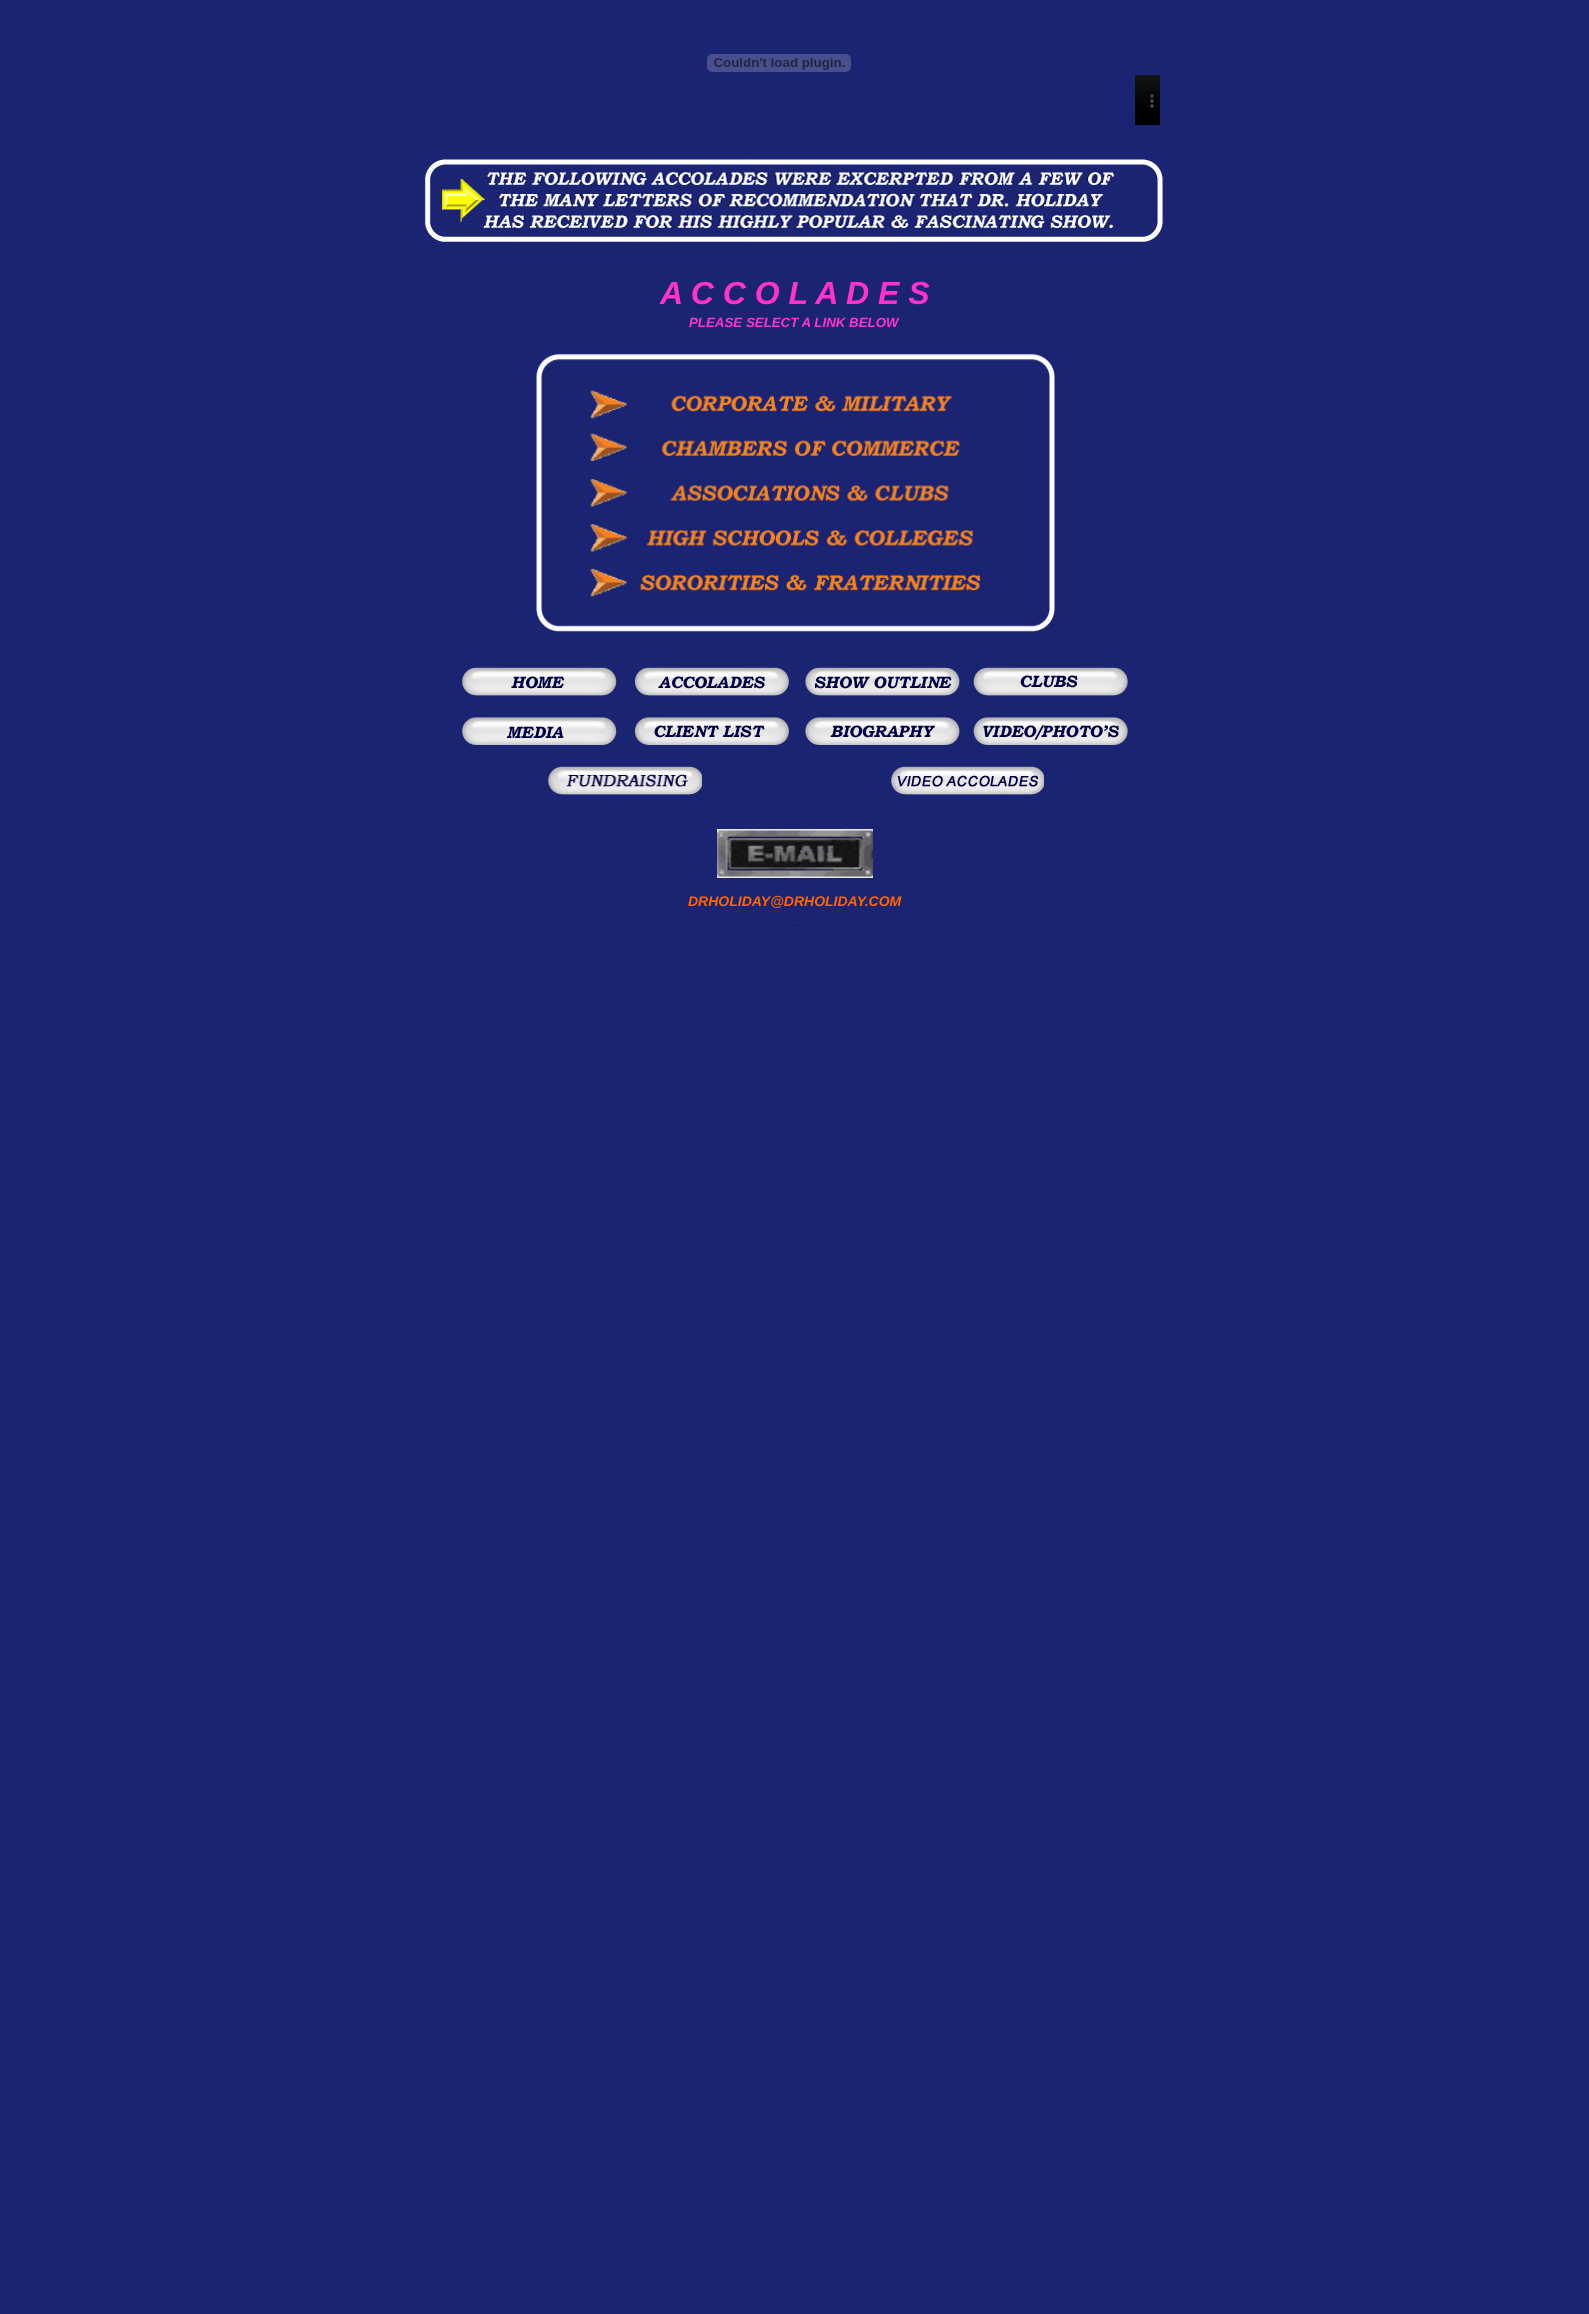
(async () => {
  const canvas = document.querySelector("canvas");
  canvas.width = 1589;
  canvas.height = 2314;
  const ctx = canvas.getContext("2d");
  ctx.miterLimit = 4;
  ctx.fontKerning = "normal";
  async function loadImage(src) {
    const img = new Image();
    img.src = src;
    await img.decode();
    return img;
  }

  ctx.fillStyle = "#1b2473";
  ctx.fillRect(0, 0, 1589, 2314);
  ctx.drawImage(await loadImage("img/1.png"), 707, 54, 144, 18);
  ctx.drawImage(await loadImage("img/2.png"), 1135, 75, 25, 50);
  ctx.drawImage(await loadImage("img/3.png"), 424, 158, 744, 88);
  ctx.drawImage(await loadImage("img/4.png"), 536, 352, 519, 280);
  ctx.drawImage(await loadImage("img/5.png"), 462, 667, 153, 29);
  ctx.drawImage(await loadImage("img/6.png"), 615, 676, 2, 11);
  ctx.drawImage(await loadImage("img/7.png"), 634, 667, 154, 29);
  ctx.drawImage(await loadImage("img/8.png"), 788, 677, 1, 10);
  ctx.drawImage(await loadImage("img/9.png"), 805, 667, 155, 29);
  ctx.drawImage(await loadImage("img/10.png"), 973, 667, 155, 29);
  ctx.drawImage(await loadImage("img/11.png"), 462, 717, 153, 28);
  ctx.drawImage(await loadImage("img/12.png"), 615, 725, 2, 12);
  ctx.drawImage(await loadImage("img/13.png"), 634, 717, 154, 28);
  ctx.drawImage(await loadImage("img/14.png"), 788, 726, 1, 10);
  ctx.drawImage(await loadImage("img/15.png"), 805, 717, 155, 28);
  ctx.drawImage(await loadImage("img/16.png"), 973, 717, 155, 28);
  ctx.drawImage(await loadImage("img/17.png"), 548, 766, 154, 29);
  ctx.drawImage(await loadImage("img/18.png"), 891, 766, 153, 29);
  ctx.drawImage(await loadImage("img/19.png"), 717, 829, 156, 49);
  ctx.fillStyle = "#000000";
  ctx.fillRect(794, 925, 1, 1);
  ctx.font = "italic bold 32px Liberation Sans";
  ctx.fillStyle = "#ff33cc";
  ctx.fillText("A C C O L A D E S", 660, 304);
  ctx.font = "italic bold 13.3px Liberation Sans";
  ctx.fillText("PLEASE SELECT A LINK BELOW", 689, 327);
  ctx.font = "italic bold 14px Liberation Sans";
  ctx.fillStyle = "#ff6600";
  ctx.fillText("DRHOLIDAY@DRHOLIDAY.COM", 688, 906);
})();
